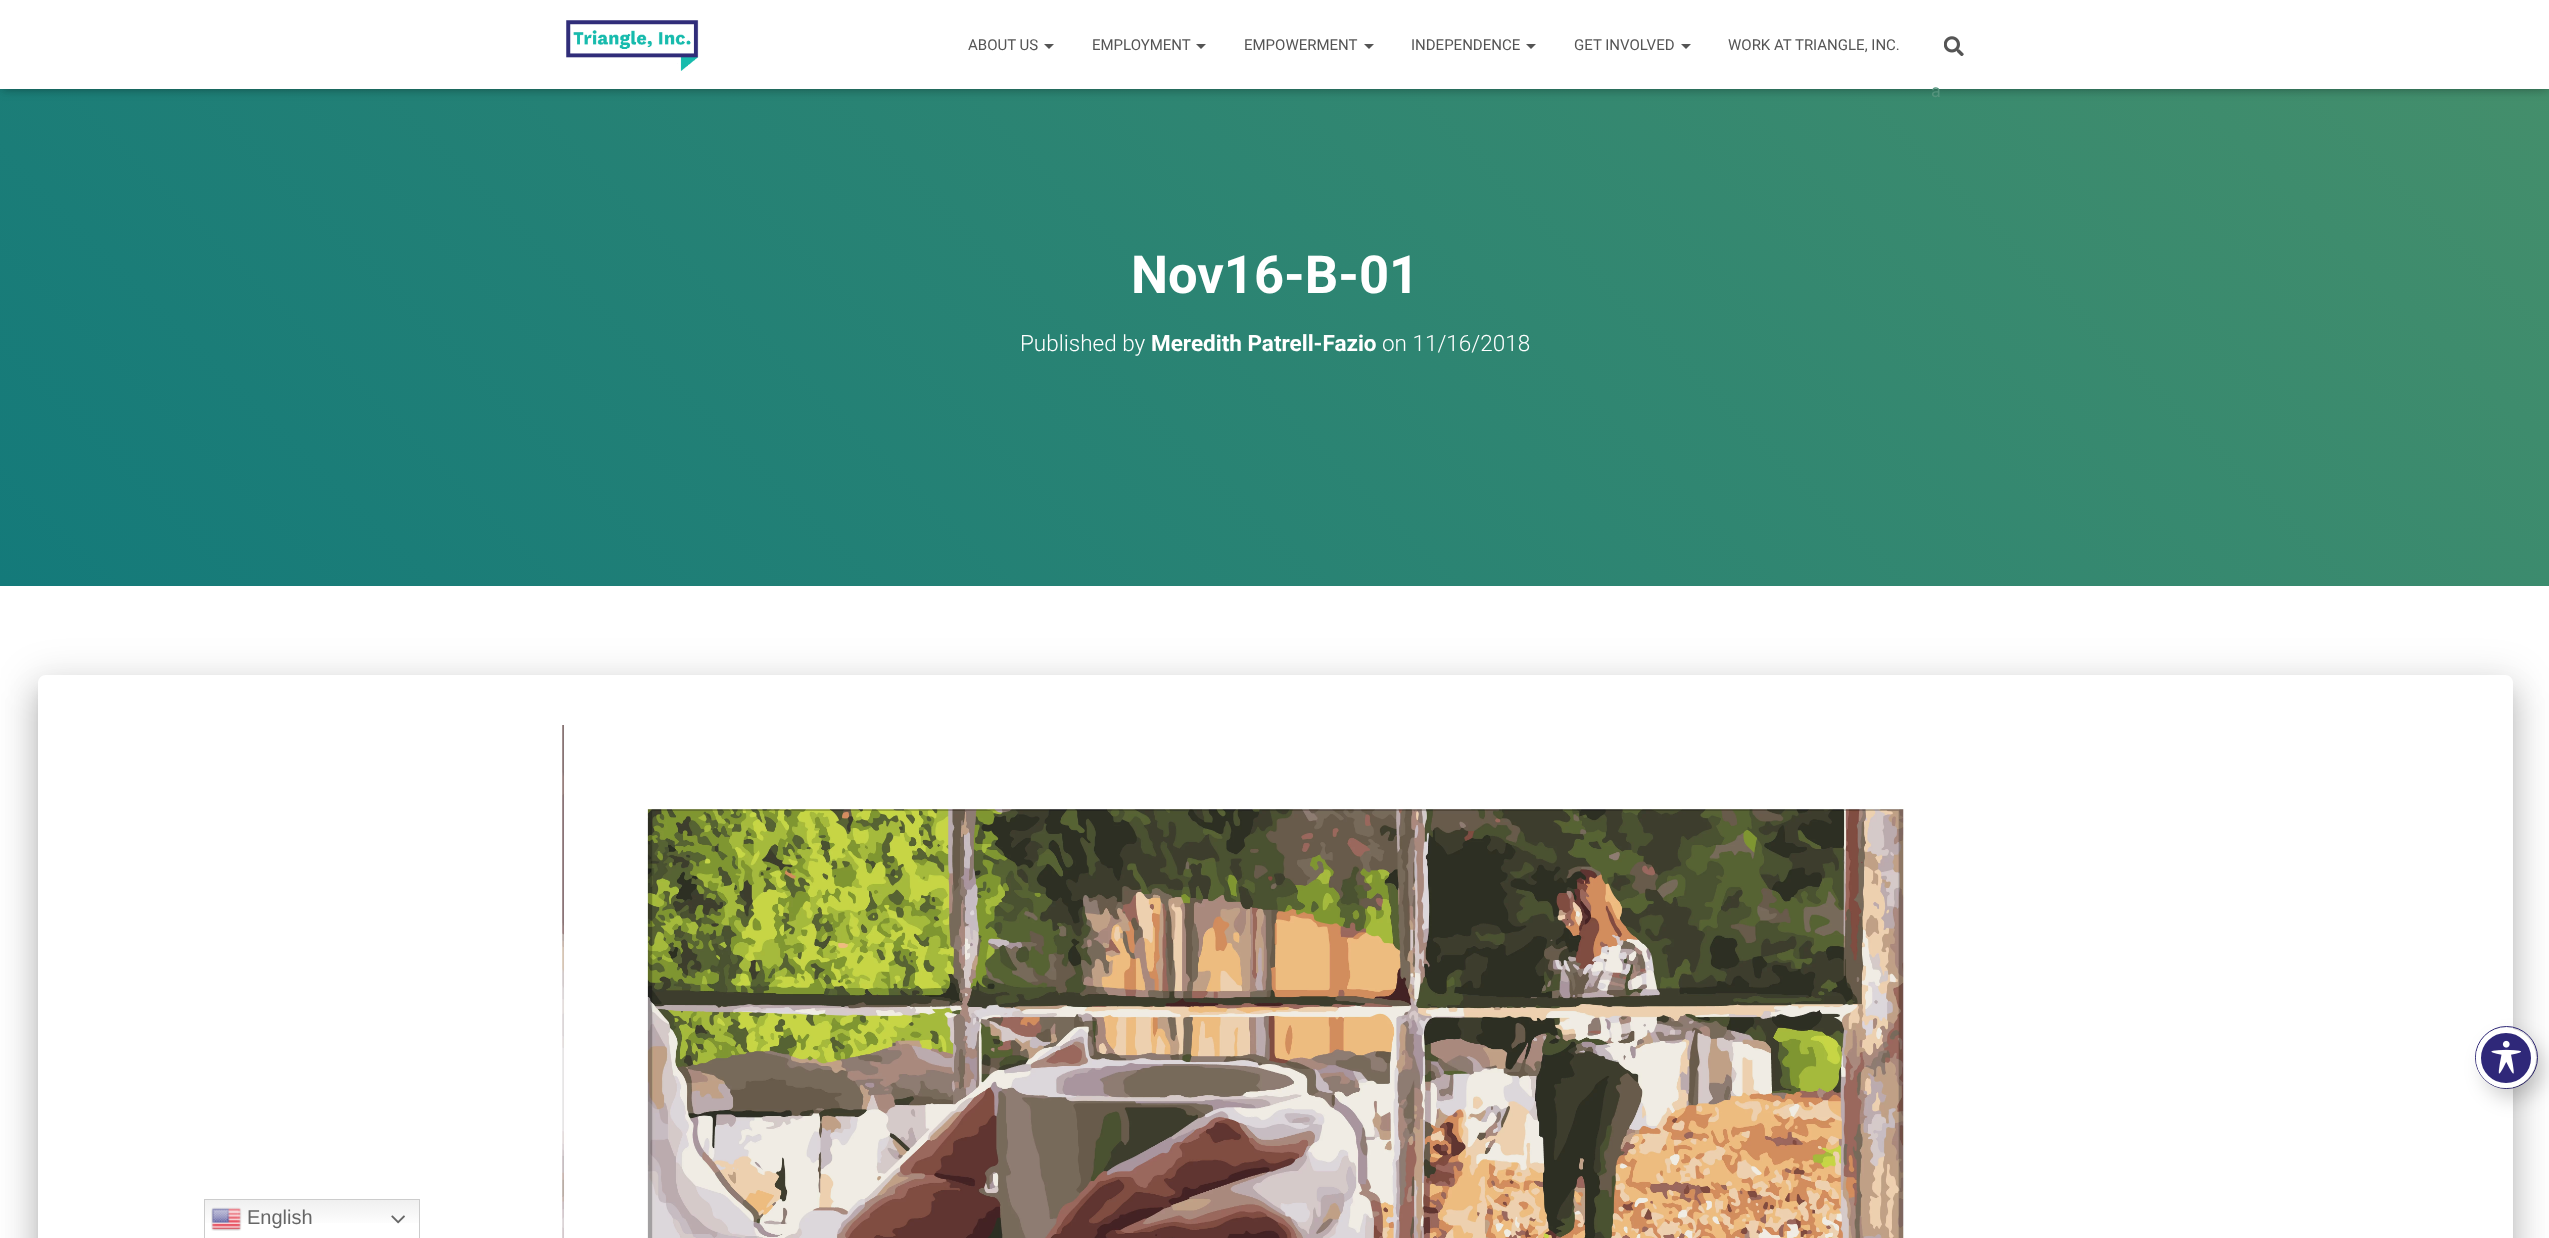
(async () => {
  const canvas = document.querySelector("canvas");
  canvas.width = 2549;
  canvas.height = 1238;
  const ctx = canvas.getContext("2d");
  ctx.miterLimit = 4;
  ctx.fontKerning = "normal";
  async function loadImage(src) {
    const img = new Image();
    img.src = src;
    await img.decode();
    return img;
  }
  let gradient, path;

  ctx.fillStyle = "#ffffff";
  ctx.fillRect(0, 0, 2549, 1238);
  gradient = ctx.createLinearGradient(491, 1077, 2059, -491);
  gradient.addColorStop(0, "#147a7a");
  gradient.addColorStop(1, "#458f6b");
  ctx.fillStyle = gradient;
  ctx.fillRect(0, 89, 2549, 497);
  ctx.fillStyle = "rgba(0, 0, 0, 0.1)";
  ctx.filter = "blur(3px)";
  ctx.beginPath();
  ctx.rect(3, 8, 2545, 83);
  ctx.fill();
  ctx.filter = "none";
  ctx.fillStyle = "rgba(0, 0, 0, 0.12)";
  ctx.filter = "blur(6px)";
  ctx.beginPath();
  ctx.rect(0, 1, 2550, 89);
  ctx.fill();
  ctx.filter = "none";
  ctx.fillStyle = "rgba(0, 0, 0, 0.42)";
  ctx.filter = "blur(6px)";
  ctx.beginPath();
  ctx.rect(8, 9, 2535, 74);
  ctx.fill();
  ctx.filter = "none";
  ctx.fillStyle = "#ffffff";
  ctx.fillRect(0, 0, 2549, 89);
  ctx.drawImage(await loadImage("img/1.png"), 566, 20, 133, 51);
  ctx.fillStyle = "#555555";
  path = new Path2D("M1044 44H1054L1049 49Z");
  ctx.fill(path);
  path = new Path2D("M1196 44H1206L1201 49Z");
  ctx.fill(path);
  path = new Path2D("M1364 44H1374L1369 49Z");
  ctx.fill(path);
  path = new Path2D("M1526 44H1536L1531 49Z");
  ctx.fill(path);
  path = new Path2D("M1681 44H1691L1686 49Z");
  ctx.fill(path);
  ctx.drawImage(await loadImage("img/2.png"), 1944, 36, 20, 20);
  ctx.fillStyle = "rgba(0, 0, 0, 0.2)";
  ctx.filter = "blur(6px)";
  ctx.beginPath();
  ctx.roundRect(44, 691, 2462, 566, 1);
  ctx.fill();
  ctx.filter = "none";
  ctx.fillStyle = "rgba(0, 0, 0, 0.12)";
  ctx.filter = "blur(19px)";
  ctx.beginPath();
  ctx.roundRect(31, 676, 2488, 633, 14);
  ctx.fill();
  ctx.filter = "none";
  ctx.fillStyle = "rgba(0, 0, 0, 0.14)";
  ctx.filter = "blur(15px)";
  ctx.beginPath();
  ctx.roundRect(35, 693, 2480, 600, 10);
  ctx.fill();
  ctx.filter = "none";
  ctx.fillStyle = "#ffffff";
  path = new Path2D("M46 675H2505C2509.5 675 2513 678.5 2513 683V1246H38V683C38 678.5 41.5 675 46 675Z");
  ctx.fill(path);
  ctx.drawImage(await loadImage("img/3.png"), 562, 725, 1343, 513);
  ctx.beginPath();
  ctx.arc(2506.5, 1057.5, 31, 0, Math.PI * 2);
  ctx.strokeStyle = "#2f2879";
  ctx.stroke();
  ctx.fillStyle = "rgba(0, 0, 0, 0.2)";
  ctx.filter = "blur(10px)";
  ctx.beginPath();
  ctx.roundRect(2484, 1038, 60, 60, 30);
  ctx.fill();
  ctx.filter = "none";
  ctx.fillStyle = "#2f2879";
  ctx.beginPath();
  ctx.arc(2506, 1058, 27.5, 0, Math.PI * 2);
  ctx.fill();
  ctx.strokeStyle = "#ffffff";
  ctx.lineWidth = 5;
  ctx.stroke();
  ctx.drawImage(await loadImage("img/4.png"), 2491, 1040, 30, 34);
  gradient = ctx.createLinearGradient(312, 1199, 312, 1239);
  gradient.addColorStop(0, "#efefef");
  gradient.addColorStop(0.7, "#ffffff");
  ctx.fillStyle = gradient;
  ctx.fillRect(205, 1200, 214, 23);
  ctx.strokeStyle = "#cccccc";
  ctx.lineWidth = 1;
  ctx.strokeRect(204.5, 1199.5, 215, 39);
  ctx.drawImage(await loadImage("img/5.png"), 211, 1207, 31, 24);
  ctx.drawImage(await loadImage("img/6.png"), 391, 1215, 14, 9);
  ctx.font = "15px Roboto";
  ctx.fillStyle = "#555555";
  for (const [text, x, y] of [
    ["ABOUT US", 968, 50],
    ["EMPLOYMENT", 1092, 50],
    ["EMPOWERMENT", 1244, 50],
    ["INDEPENDENCE", 1411, 50],
    ["GET INVOLVED", 1574, 50],
    ["WORK AT TRIANGLE, INC.", 1728, 50],
  ]) {
    ctx.fillText(text, x, y);
  }
  ctx.font = "18px Roboto";
  ctx.fillStyle = "#55937d";
  ctx.fillText("a", 1931, 97);
  ctx.font = "bold 52.5px Roboto";
  ctx.fillStyle = "#ffffff";
  ctx.fillText("Nov16-B-01", 1131, 293);
  ctx.font = "300 22.5px Roboto";
  ctx.fillText("Published by", 1020, 351);
  ctx.font = "bold 22.5px Roboto";
  ctx.fillText("Meredith Patrell-Fazio", 1151, 351);
  ctx.font = "300 22.5px Roboto";
  ctx.fillText("on 11/16/2018", 1382, 351);
  ctx.font = "20px Liberation Sans";
  ctx.fillStyle = "#666666";
  ctx.fillText("English", 247, 1224);
})();
